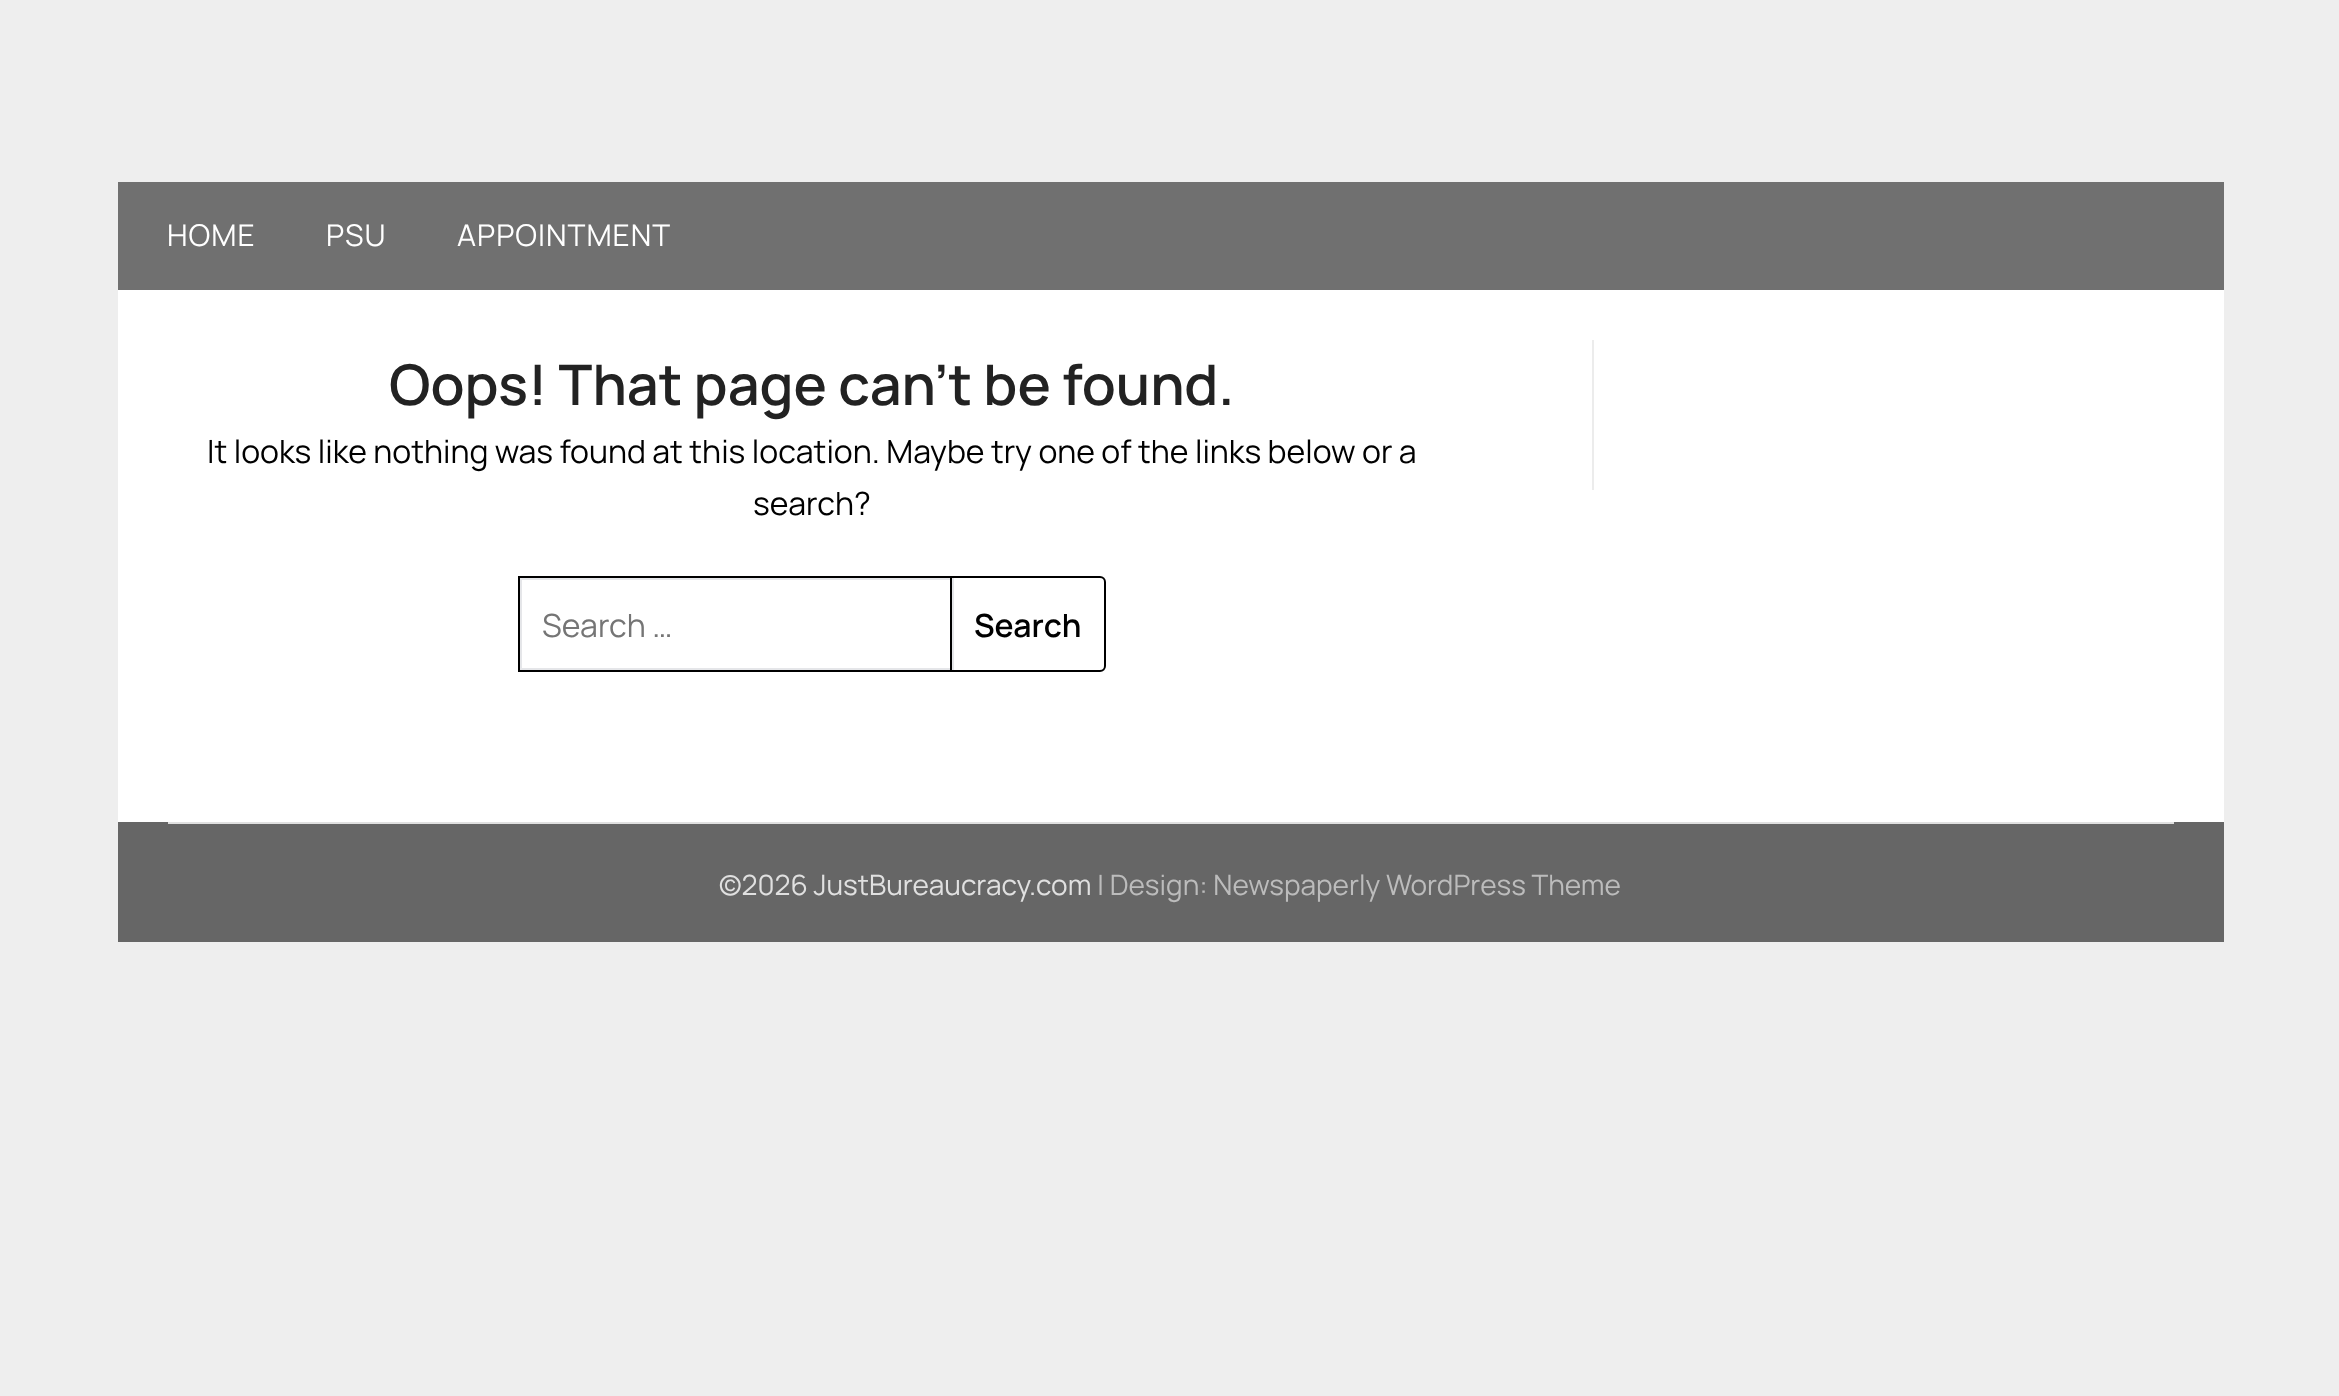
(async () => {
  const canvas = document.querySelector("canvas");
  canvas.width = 2339;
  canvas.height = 1396;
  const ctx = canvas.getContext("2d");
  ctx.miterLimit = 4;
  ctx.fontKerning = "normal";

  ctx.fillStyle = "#eeeeee";
  ctx.fillRect(0, 0, 2339, 1396);
  for (const [x, y, w, h, color] of [
    [118, 182, 2106, 108, "#707070"],
    [118, 290, 2106, 532, "#ffffff"],
    [518, 576, 436, 2, "#000000"],
    [518, 670, 436, 2, "#000000"],
    [518, 576, 2, 96, "#000000"],
  ]) {
    ctx.fillStyle = color;
    ctx.fillRect(x, y, w, h);
  }
  ctx.strokeStyle = "#e5e6e9";
  ctx.lineWidth = 2;
  ctx.strokeRect(521, 579, 432, 90);
  ctx.beginPath();
  ctx.roundRect(951, 577, 154, 94, [0, 5, 5, 0]);
  ctx.strokeStyle = "#000000";
  ctx.stroke();
  for (const [x, y, w, h, color] of [
    [1592, 340, 2, 150, "#ececec"],
    [118, 822, 2106, 120, "#666666"],
    [168, 822, 2006, 2, "#e0e0e0"],
  ]) {
    ctx.fillStyle = color;
    ctx.fillRect(x, y, w, h);
  }
  ctx.letterSpacing = "1px";
  ctx.font = "30px Manrope";
  ctx.fillStyle = "#ffffff";
  for (const [text, x, y] of [
    ["HOME", 167, 246],
    ["PSU", 326, 246],
    ["APPOINTMENT", 457, 246],
  ]) {
    ctx.fillText(text, x, y);
  }
  ctx.letterSpacing = "0px";
  ctx.font = "600 56px Manrope";
  ctx.fillStyle = "#222222";
  ctx.fillText("Oops! That page can’t be found.", 389, 405);
  ctx.font = "32px Manrope";
  ctx.fillStyle = "#000000";
  ctx.fillText("It looks like nothing was found at this location. Maybe try one of the links below or a", 207, 463);
  ctx.fillText("search?", 753, 515);
  ctx.fillStyle = "#757575";
  ctx.fillText("Search …", 542, 637);
  ctx.font = "600 32px Manrope";
  ctx.fillStyle = "#000000";
  ctx.fillText("Search", 974, 637);
  ctx.font = "28px Manrope";
  ctx.fillStyle = "#e0e0e0";
  ctx.fillText("©2026 JustBureaucracy.com", 719, 895);
  ctx.fillStyle = "#bcbcbc";
  ctx.fillText("| Design: Newspaperly WordPress Theme", 1097, 895);
})();
